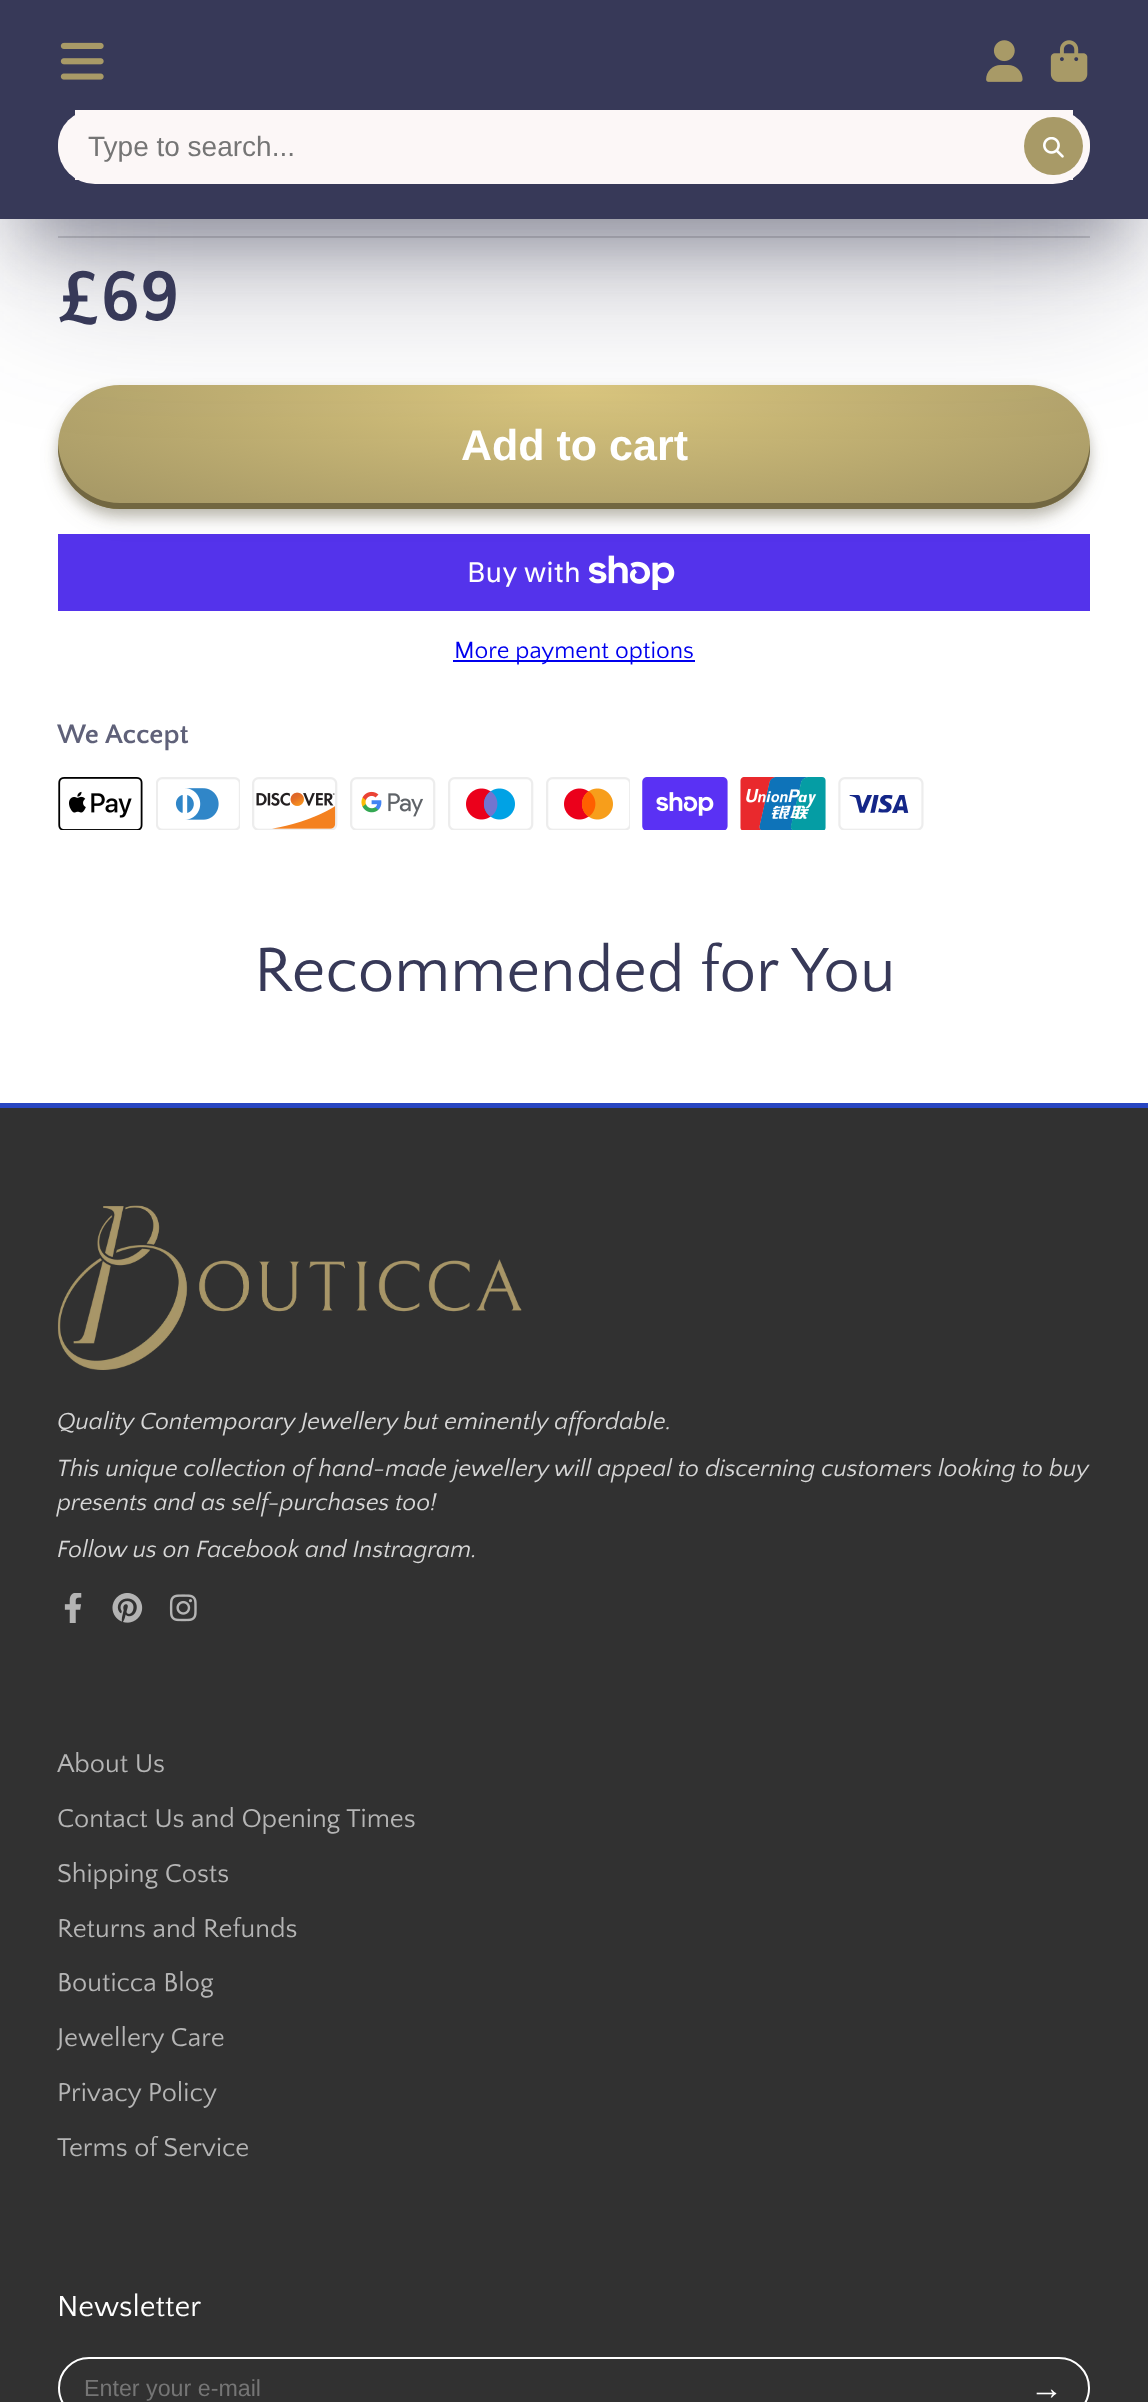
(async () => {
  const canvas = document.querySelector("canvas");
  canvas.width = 1148;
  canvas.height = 2402;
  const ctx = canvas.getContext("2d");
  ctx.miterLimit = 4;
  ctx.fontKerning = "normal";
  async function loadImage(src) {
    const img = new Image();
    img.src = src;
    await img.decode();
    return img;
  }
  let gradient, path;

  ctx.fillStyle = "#ffffff";
  ctx.fillRect(0, 0, 1148, 2402);
  ctx.fillStyle = "#d9d9d9";
  ctx.fillRect(58, 236, 1032, 2);
  ctx.fillStyle = "rgba(45, 47, 72, 0.4)";
  ctx.filter = "blur(33.5px)";
  ctx.beginPath();
  ctx.rect(25, 70, 1099, 170);
  ctx.fill();
  ctx.filter = "none";
  ctx.fillStyle = "#5433eb";
  ctx.fillRect(58, 534, 1032, 77);
  ctx.drawImage(await loadImage("img/5.png"), 589, 555, 86, 35);
  ctx.fillStyle = "rgba(75, 68, 43, 0.15)";
  ctx.filter = "blur(13px)";
  ctx.beginPath();
  ctx.roundRect(65, 404, 1018, 112, 56);
  ctx.fill();
  ctx.filter = "none";
  ctx.fillStyle = "rgba(75, 68, 43, 0.3)";
  ctx.filter = "blur(6.5px)";
  ctx.beginPath();
  ctx.roundRect(58, 392, 1032, 124, 62);
  ctx.fill();
  ctx.filter = "none";
  ctx.save();
  ctx.beginPath();
  ctx.roundRect(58, 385, 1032, 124, 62);
  ctx.clip();
  ctx.filter = "blur(6.5px)";
  ctx.beginPath();
  ctx.roundRect(58, 392, 1032, 124, 62);
  ctx.fill();
  ctx.filter = "none";
  ctx.restore();
  gradient = ctx.createRadialGradient(574, 1596.88, 0, 574, 1596.88, 730);
  gradient.addColorStop(0, "#dcc87f");
  gradient.addColorStop(0.9, "#a89a67");
  ctx.fillStyle = gradient;
  ctx.beginPath();
  ctx.roundRect(58, 385, 1032, 124, 62);
  ctx.save();
  ctx.clip();
  ctx.scale(1, 176 / 730);
  ctx.fillRect(0, 0, 1148, 9963);
  ctx.restore();
  ctx.fillStyle = "#726741";
  path = new Path2D("M58 444C56 479 85 509 120 509H1028C1063 509 1092 479 1090 444C1088 477 1061 503 1028 503H120C87 503 60 477 58 444Z");
  ctx.fill(path);
  ctx.fillStyle = "rgba(45, 47, 72, 0.3)";
  ctx.filter = "blur(76.5px)";
  ctx.beginPath();
  ctx.rect(25, 102, 1099, 169);
  ctx.fill();
  ctx.filter = "none";
  ctx.fillStyle = "#373958";
  ctx.fillRect(0, 0, 1148, 219);
  ctx.drawImage(await loadImage("img/1.png"), 60, 42, 44, 38);
  ctx.drawImage(await loadImage("img/2.png"), 986, 40, 37, 42);
  ctx.drawImage(await loadImage("img/3.png"), 1050, 40, 38, 42);
  ctx.fillStyle = "#fcf7f7";
  ctx.beginPath();
  ctx.roundRect(58, 110, 1032, 70, 35);
  ctx.fill();
  ctx.fillRect(75, 110, 998, 70);
  ctx.beginPath();
  ctx.roundRect(58, 110, 1032, 74, 37);
  ctx.fill();
  ctx.fillStyle = "#a89a67";
  ctx.beginPath();
  ctx.roundRect(1024, 117, 59, 58, 29);
  ctx.fill();
  ctx.drawImage(await loadImage("img/4.png"), 1043, 137, 21, 21);
  ctx.fillStyle = "#0000ee";
  ctx.fillRect(453, 660, 242, 2);
  ctx.drawImage(await loadImage("img/6.png"), 58, 777, 85, 53);
  ctx.drawImage(await loadImage("img/7.png"), 156, 777, 84, 53);
  ctx.drawImage(await loadImage("img/8.png"), 252, 777, 86, 53);
  ctx.drawImage(await loadImage("img/9.png"), 350, 777, 86, 53);
  ctx.drawImage(await loadImage("img/10.png"), 448, 777, 86, 53);
  ctx.drawImage(await loadImage("img/11.png"), 546, 777, 84, 53);
  ctx.drawImage(await loadImage("img/12.png"), 642, 777, 86, 53);
  ctx.drawImage(await loadImage("img/13.png"), 740, 777, 86, 53);
  ctx.drawImage(await loadImage("img/14.png"), 838, 777, 86, 53);
  ctx.fillStyle = "#313131";
  ctx.fillRect(0, 1108, 1148, 1294);
  ctx.fillStyle = "#2846c2";
  ctx.fillRect(0, 1103, 1148, 5);
  ctx.drawImage(await loadImage("img/15.png"), 57, 1205, 465, 165);
  ctx.drawImage(await loadImage("img/16.png"), 64, 1593, 18, 30);
  ctx.drawImage(await loadImage("img/17.png"), 112, 1593, 31, 30);
  ctx.drawImage(await loadImage("img/18.png"), 169, 1594, 28, 28);
  ctx.beginPath();
  ctx.roundRect(59, 2358, 1030, 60, 30);
  ctx.strokeStyle = "#ffffff";
  ctx.lineWidth = 2;
  ctx.stroke();
  ctx.font = "28px Liberation Sans";
  ctx.fillStyle = "#757575";
  ctx.fillText("Type to search...", 88, 156);
  ctx.font = "bold 74px Quattrocento Sans";
  ctx.fillStyle = "#373958";
  ctx.fillText("£69", 57, 320);
  ctx.font = "bold 43px Liberation Sans";
  ctx.fillStyle = "#ffffff";
  ctx.fillText("Add to cart", 461, 460);
  ctx.font = "28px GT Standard";
  ctx.fillText("Buy with", 467, 582);
  ctx.font = "24.5px Quattrocento Sans";
  ctx.fillStyle = "#0000ee";
  ctx.fillText("More payment options", 454, 658);
  ctx.font = "bold 28px Quattrocento Sans";
  ctx.fillStyle = "#5f6179";
  ctx.fillText("We Accept", 57, 743);
  ctx.font = "65.25px Quattrocento Sans";
  ctx.fillStyle = "#373958";
  ctx.fillText("Recommended for You", 254, 991);
  ctx.font = "italic 24.5px Quattrocento Sans";
  ctx.fillStyle = "#d6d6d6";
  for (const [text, x, y] of [
    ["Quality Contemporary Jewellery but eminently affordable.", 57, 1429],
    ["This unique collection of hand-made jewellery will appeal to discerning customers looking to buy", 57, 1476],
    ["presents and as self-purchases too!", 57, 1510],
    ["Follow us on Facebook and Instragram.", 57, 1557],
  ]) {
    ctx.fillText(text, x, y);
  }
  ctx.font = "27px Quattrocento Sans";
  ctx.fillStyle = "#b5b5b5";
  for (const [text, x, y] of [
    ["About Us", 57, 1772],
    ["Contact Us and Opening Times", 57, 1827],
    ["Shipping Costs", 57, 1882],
    ["Returns and Refunds", 57, 1937],
    ["Bouticca Blog", 57, 1991],
    ["Jewellery Care", 57, 2046],
    ["Privacy Policy", 57, 2101],
    ["Terms of Service", 57, 2156],
  ]) {
    ctx.fillText(text, x, y);
  }
  ctx.font = "30.5px Quattrocento Sans";
  ctx.fillStyle = "#ffffff";
  ctx.fillText("Newsletter", 57, 2316);
  ctx.font = "23.25px Liberation Sans";
  ctx.fillStyle = "#757575";
  ctx.fillText("Enter your e-mail", 84, 2396);
  ctx.font = "33px Liberation Sans";
  ctx.fillStyle = "#ffffff";
  ctx.fillText("→", 1030, 2399);
})();
